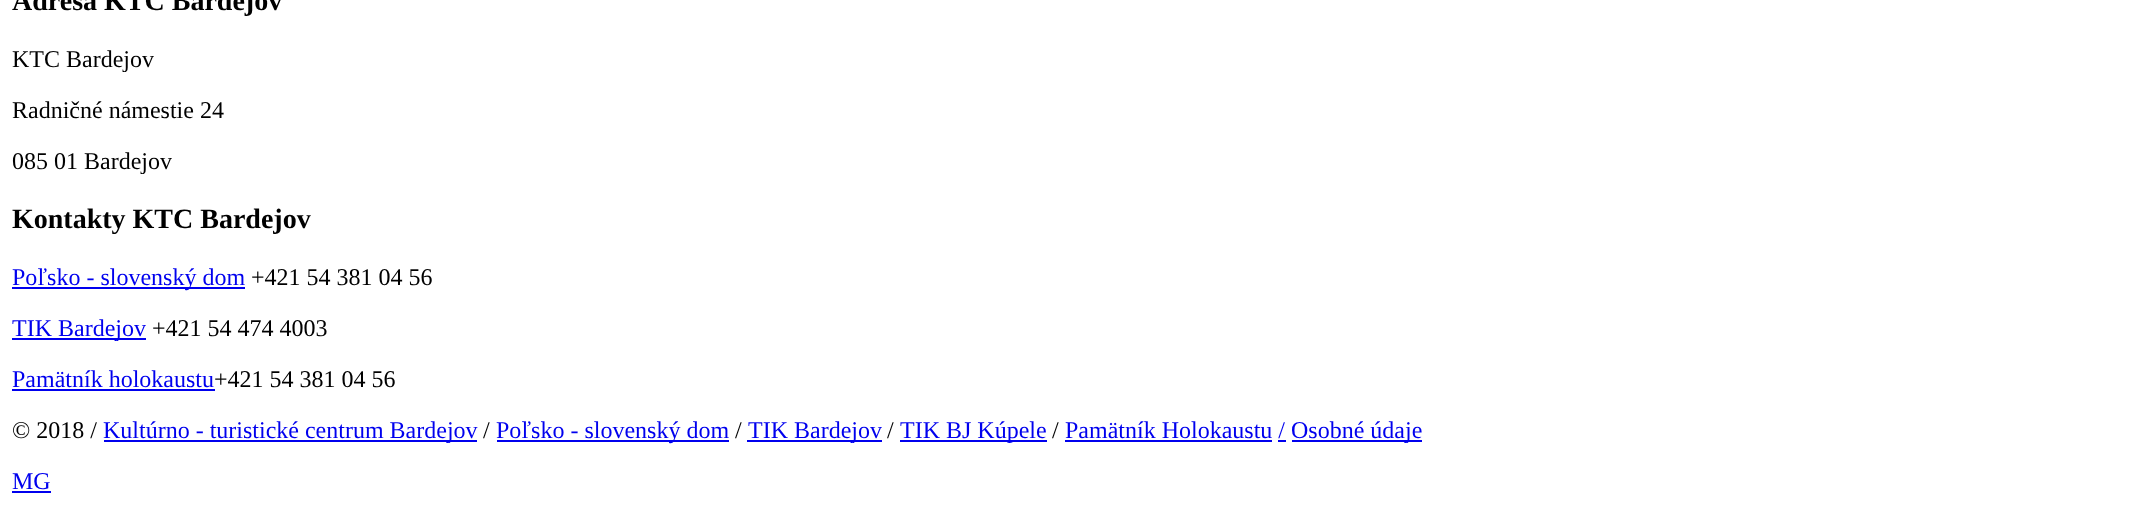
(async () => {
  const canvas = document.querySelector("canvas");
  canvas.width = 2133;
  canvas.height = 518;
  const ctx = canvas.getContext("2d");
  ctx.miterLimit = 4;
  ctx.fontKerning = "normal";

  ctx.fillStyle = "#ffffff";
  ctx.fillRect(0, 0, 2133, 518);
  for (const [x, y, w, h, color] of [
    [12, 287, 233, 2, "#0000ee"],
    [12, 338, 134, 2, "#0000ee"],
    [12, 389, 203, 2, "#0000ee"],
    [104, 440, 373, 2, "#0000ee"],
    [497, 440, 232, 2, "#0000ee"],
    [747, 440, 135, 2, "#0000ee"],
    [900, 440, 147, 2, "#0000ee"],
    [1065, 440, 207, 2, "#0000ee"],
    [1292, 440, 130, 2, "#0000ee"],
    [1278, 440, 8, 2, "#0000ee"],
    [12, 491, 39, 2, "#0000ee"],
  ]) {
    ctx.fillStyle = color;
    ctx.fillRect(x, y, w, h);
  }
  ctx.font = "bold 28px Liberation Serif";
  ctx.fillStyle = "#000000";
  ctx.fillText("Adresa KTC Bardejov", 12, 10);
  ctx.font = "24px Liberation Serif";
  for (const [text, x, y] of [
    ["KTC Bardejov", 12, 67],
    ["Radničné námestie 24", 12, 118],
    ["085 01 Bardejov", 12, 169],
  ]) {
    ctx.fillText(text, x, y);
  }
  ctx.font = "bold 28px Liberation Serif";
  ctx.fillText("Kontakty KTC Bardejov", 12, 228);
  ctx.font = "24px Liberation Serif";
  ctx.fillStyle = "#0000ee";
  ctx.fillText("Poľsko - slovenský dom", 12, 285);
  ctx.fillStyle = "#000000";
  ctx.fillText("+421 54 381 04 56", 251, 285);
  ctx.fillStyle = "#0000ee";
  ctx.fillText("TIK Bardejov", 12, 336);
  ctx.fillStyle = "#000000";
  ctx.fillText("+421 54 474 4003", 152, 336);
  ctx.fillStyle = "#0000ee";
  ctx.fillText("Pamätník holokaustu", 12, 387);
  ctx.fillStyle = "#000000";
  ctx.fillText("+421 54 381 04 56", 214, 387);
  ctx.fillText("© 2018 /", 12, 438);
  ctx.fillStyle = "#0000ee";
  ctx.fillText("Kultúrno - turistické centrum Bardejov", 103, 438);
  ctx.fillStyle = "#000000";
  ctx.fillText("/", 483, 438);
  ctx.fillStyle = "#0000ee";
  ctx.fillText("Poľsko - slovenský dom", 496, 438);
  ctx.fillStyle = "#000000";
  ctx.fillText("/", 735, 438);
  ctx.fillStyle = "#0000ee";
  ctx.fillText("TIK Bardejov", 748, 438);
  ctx.fillStyle = "#000000";
  ctx.fillText("/", 887, 438);
  ctx.fillStyle = "#0000ee";
  ctx.fillText("TIK BJ Kúpele", 900, 438);
  ctx.fillStyle = "#000000";
  ctx.fillText("/", 1052, 438);
  ctx.fillStyle = "#0000ee";
  for (const [text, x, y] of [
    ["Pamätník Holokaustu /", 1065, 438],
    ["Osobné údaje", 1291, 438],
    ["MG", 12, 489],
  ]) {
    ctx.fillText(text, x, y);
  }
})();
